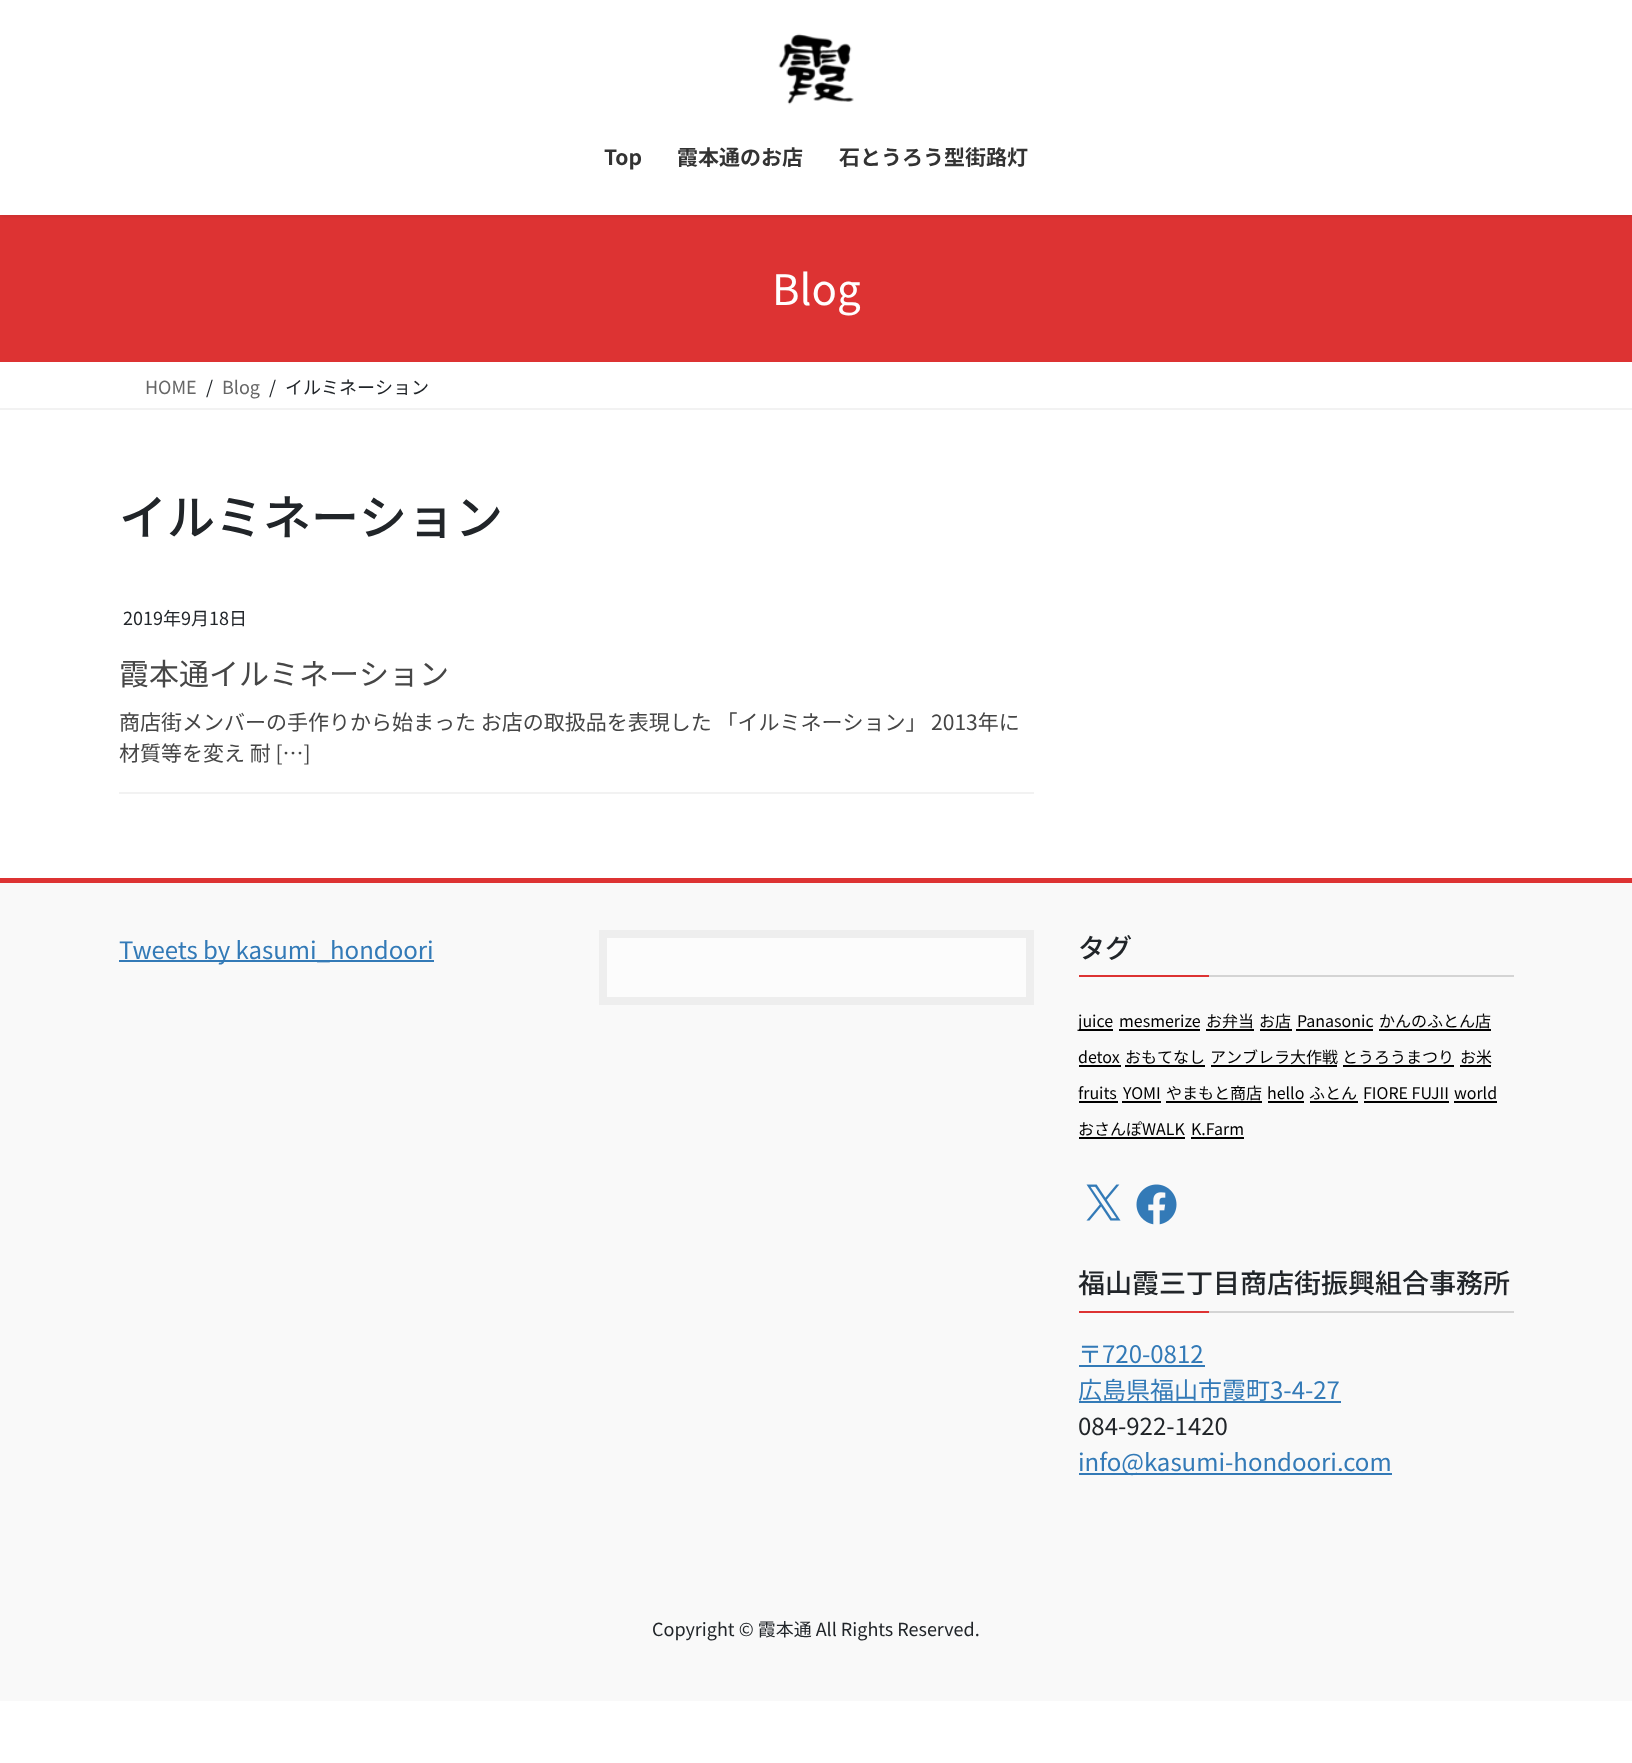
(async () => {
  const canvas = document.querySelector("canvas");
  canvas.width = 1632;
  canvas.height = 1763;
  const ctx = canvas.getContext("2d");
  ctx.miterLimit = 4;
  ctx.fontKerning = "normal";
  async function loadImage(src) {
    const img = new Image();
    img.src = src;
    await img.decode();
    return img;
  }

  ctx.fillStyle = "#ffffff";
  ctx.fillRect(0, 0, 1632, 1763);
  ctx.fillStyle = "#dd3333";
  ctx.fillRect(0, 215, 1632, 147);
  ctx.fillStyle = "rgba(0, 0, 0, 0.1)";
  ctx.filter = "blur(2px)";
  ctx.beginPath();
  ctx.rect(0, 2, 1632, 214);
  ctx.fill();
  ctx.filter = "none";
  ctx.fillStyle = "#ffffff";
  ctx.fillRect(0, 0, 1632, 215);
  ctx.drawImage(await loadImage("img/1.png"), 778, 33, 76, 72);
  for (const [x, y, w, h, color] of [
    [0, 408, 1632, 2, "#f2f2f2"],
    [119, 792, 915, 2, "#f2f2f2"],
    [0, 883, 1632, 818, "#f9f9f9"],
    [0, 878, 1632, 5, "#dd3333"],
    [119, 960, 315, 2, "#337ab7"],
  ]) {
    ctx.fillStyle = color;
    ctx.fillRect(x, y, w, h);
  }
  ctx.fillStyle = "#fcfcfc";
  ctx.beginPath();
  ctx.rect(603, 934, 427, 67);
  ctx.fill();
  ctx.strokeStyle = "#eeeeee";
  ctx.lineWidth = 8;
  ctx.stroke();
  for (const [x, y, w, h, color] of [
    [1209, 975, 305, 2, "#d4d4d4"],
    [1079, 975, 130, 2, "#dd3333"],
    [1079, 1029, 34, 2, "#000000"],
    [1119, 1029, 81, 2, "#000000"],
    [1206, 1029, 48, 2, "#000000"],
    [1260, 1029, 32, 2, "#000000"],
    [1296, 1029, 77, 2, "#000000"],
    [1379, 1029, 112, 2, "#000000"],
    [1079, 1065, 42, 2, "#000000"],
    [1125, 1065, 80, 2, "#000000"],
    [1211, 1065, 126, 2, "#000000"],
    [1343, 1065, 111, 2, "#000000"],
    [1460, 1065, 31, 2, "#000000"],
    [1079, 1101, 39, 2, "#000000"],
    [1122, 1101, 39, 2, "#000000"],
    [1166, 1101, 96, 2, "#000000"],
    [1268, 1101, 36, 2, "#000000"],
    [1310, 1101, 48, 2, "#000000"],
    [1364, 1101, 85, 2, "#000000"],
    [1454, 1101, 43, 2, "#000000"],
    [1079, 1137, 106, 2, "#000000"],
    [1191, 1137, 53, 2, "#000000"],
  ]) {
    ctx.fillStyle = color;
    ctx.fillRect(x, y, w, h);
  }
  ctx.drawImage(await loadImage("img/2.png"), 1086, 1184, 35, 37);
  ctx.drawImage(await loadImage("img/3.png"), 1136, 1184, 41, 41);
  for (const [x, y, w, h, color] of [
    [1209, 1311, 305, 2, "#d4d4d4"],
    [1079, 1311, 130, 2, "#dd3333"],
    [1079, 1365, 126, 2, "#337ab7"],
    [1079, 1401, 262, 2, "#337ab7"],
    [1079, 1473, 313, 2, "#337ab7"],
  ]) {
    ctx.fillStyle = color;
    ctx.fillRect(x, y, w, h);
  }
  ctx.font = "bold 21px Noto Sans JP";
  ctx.fillStyle = "#333333";
  for (const [text, x, y] of [
    ["Top", 604, 165],
    ["霞本通のお店", 677, 165],
    ["石とうろう型街路灯", 839, 165],
  ]) {
    ctx.fillText(text, x, y);
  }
  ctx.font = "42px Noto Sans JP";
  ctx.fillStyle = "#ffffff";
  ctx.fillText("Blog", 772, 305);
  ctx.font = "18px Noto Sans JP";
  ctx.fillStyle = "#666666";
  ctx.fillText("HOME", 145, 394);
  ctx.fillStyle = "#212529";
  ctx.fillText("/", 206, 394);
  ctx.fillStyle = "#666666";
  ctx.fillText("Blog", 222, 394);
  ctx.fillStyle = "#212529";
  ctx.fillText("/", 269, 394);
  ctx.fillText("イルミネーション", 285, 394);
  ctx.font = "500 48px Noto Sans JP";
  ctx.fillText("イルミネーション", 119, 535);
  ctx.font = "18px Noto Sans JP";
  ctx.fillText("2019年9月18日", 123, 625);
  ctx.font = "30px Noto Sans JP";
  ctx.fillStyle = "#464646";
  ctx.fillText("霞本通イルミネーション", 119, 685);
  ctx.font = "21px Noto Sans JP";
  ctx.fillText("商店街メンバーの手作りから始まった お店の取扱品を表現した 「イルミネーション」 2013年に", 119, 730);
  ctx.fillText("材質等を変え 耐 […]", 119, 761);
  ctx.font = "24px Noto Sans JP";
  ctx.fillStyle = "#337ab7";
  ctx.fillText("Tweets by kasumi_hondoori", 119, 959);
  ctx.font = "500 27px Noto Sans JP";
  ctx.fillStyle = "#212529";
  ctx.fillText("タグ", 1078, 958);
  ctx.font = "16px Noto Sans JP";
  ctx.fillStyle = "#000000";
  for (const [text, x, y] of [
    ["juice", 1078, 1027],
    ["mesmerize", 1119, 1027],
    ["お弁当", 1206, 1027],
    ["お店", 1259, 1027],
    ["Panasonic", 1297, 1027],
    ["かんのふとん店", 1379, 1027],
    ["detox", 1078, 1063],
    ["おもてなし", 1125, 1063],
    ["アンブレラ大作戦", 1210, 1063],
    ["とうろうまつり", 1342, 1063],
    ["お米", 1460, 1063],
    ["fruits", 1078, 1099],
    ["YOMI", 1123, 1099],
    ["やまもと商店", 1166, 1099],
    ["hello", 1267, 1099],
    ["ふとん", 1309, 1099],
    ["FIORE FUJII", 1363, 1099],
    ["world", 1454, 1099],
    ["おさんぽWALK", 1078, 1135],
    ["K.Farm", 1191, 1135],
  ]) {
    ctx.fillText(text, x, y);
  }
  ctx.font = "500 27px Noto Sans JP";
  ctx.fillStyle = "#212529";
  ctx.fillText("福山霞三丁目商店街振興組合事務所", 1078, 1293);
  ctx.font = "24px Noto Sans JP";
  ctx.fillStyle = "#337ab7";
  ctx.fillText("〒720-0812", 1078, 1363);
  ctx.fillText("広島県福山市霞町3-4-27", 1078, 1399);
  ctx.fillStyle = "#212529";
  ctx.fillText("084-922-1420", 1078, 1435);
  ctx.fillStyle = "#337ab7";
  ctx.fillText("info@kasumi-hondoori.com", 1078, 1471);
  ctx.font = "18px Noto Sans JP";
  ctx.fillStyle = "#212529";
  ctx.fillText("Copyright © 霞本通 All Rights Reserved.", 652, 1636);
})();
